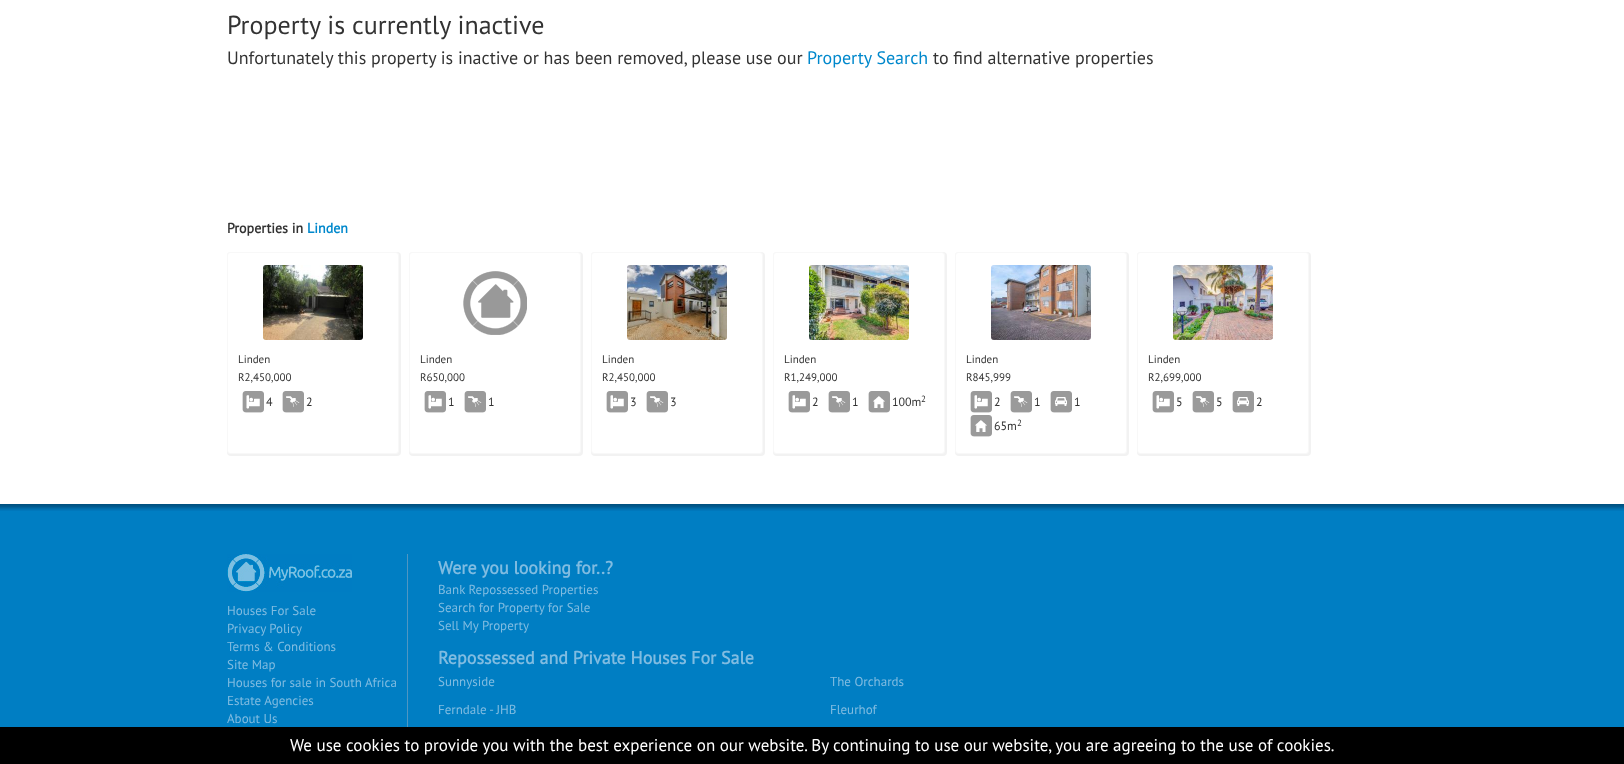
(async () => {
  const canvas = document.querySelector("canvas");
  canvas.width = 1624;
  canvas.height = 764;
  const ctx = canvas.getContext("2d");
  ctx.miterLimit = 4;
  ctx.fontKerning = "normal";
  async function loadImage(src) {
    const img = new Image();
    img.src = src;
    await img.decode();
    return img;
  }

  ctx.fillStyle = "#ffffff";
  ctx.fillRect(0, 0, 1624, 764);
  ctx.fillStyle = "rgba(0, 0, 0, 0.05)";
  ctx.filter = "blur(0.5px)";
  ctx.beginPath();
  ctx.roundRect(227, 252, 174, 204, 4);
  ctx.fill();
  ctx.filter = "none";
  ctx.fillStyle = "#ffffff";
  ctx.beginPath();
  ctx.roundRect(227.5, 252.5, 171, 201, 2.5);
  ctx.fill();
  ctx.strokeStyle = "#f8f8f8";
  ctx.stroke();
  ctx.drawImage(await loadImage("img/1.png"), 263, 265, 100, 75);
  ctx.drawImage(await loadImage("img/2.png"), 242, 391, 22, 22);
  ctx.drawImage(await loadImage("img/3.png"), 282, 391, 22, 22);
  ctx.fillStyle = "rgba(0, 0, 0, 0.05)";
  ctx.filter = "blur(0.5px)";
  ctx.beginPath();
  ctx.roundRect(409, 252, 174, 204, 4);
  ctx.fill();
  ctx.filter = "none";
  ctx.fillStyle = "#ffffff";
  ctx.beginPath();
  ctx.roundRect(409.5, 252.5, 171, 201, 2.5);
  ctx.fill();
  ctx.stroke();
  ctx.drawImage(await loadImage("img/4.png"), 463, 271, 64, 64);
  ctx.drawImage(await loadImage("img/2.png"), 424, 391, 22, 22);
  ctx.drawImage(await loadImage("img/3.png"), 464, 391, 22, 22);
  ctx.fillStyle = "rgba(0, 0, 0, 0.05)";
  ctx.filter = "blur(0.5px)";
  ctx.beginPath();
  ctx.roundRect(591, 252, 174, 204, 4);
  ctx.fill();
  ctx.filter = "none";
  ctx.fillStyle = "#ffffff";
  ctx.beginPath();
  ctx.roundRect(591.5, 252.5, 171, 201, 2.5);
  ctx.fill();
  ctx.stroke();
  ctx.drawImage(await loadImage("img/5.png"), 627, 265, 100, 75);
  ctx.drawImage(await loadImage("img/2.png"), 606, 391, 22, 22);
  ctx.drawImage(await loadImage("img/3.png"), 646, 391, 22, 22);
  ctx.fillStyle = "rgba(0, 0, 0, 0.05)";
  ctx.filter = "blur(0.5px)";
  ctx.beginPath();
  ctx.roundRect(773, 252, 174, 204, 4);
  ctx.fill();
  ctx.filter = "none";
  ctx.fillStyle = "#ffffff";
  ctx.beginPath();
  ctx.roundRect(773.5, 252.5, 171, 201, 2.5);
  ctx.fill();
  ctx.stroke();
  ctx.drawImage(await loadImage("img/6.png"), 809, 265, 100, 75);
  ctx.drawImage(await loadImage("img/2.png"), 788, 391, 22, 22);
  ctx.drawImage(await loadImage("img/3.png"), 828, 391, 22, 22);
  ctx.drawImage(await loadImage("img/7.png"), 868, 391, 22, 22);
  ctx.fillStyle = "rgba(0, 0, 0, 0.05)";
  ctx.filter = "blur(0.5px)";
  ctx.beginPath();
  ctx.roundRect(955, 252, 174, 204, 4);
  ctx.fill();
  ctx.filter = "none";
  ctx.fillStyle = "#ffffff";
  ctx.beginPath();
  ctx.roundRect(955.5, 252.5, 171, 201, 2.5);
  ctx.fill();
  ctx.stroke();
  ctx.drawImage(await loadImage("img/8.png"), 991, 265, 100, 75);
  ctx.drawImage(await loadImage("img/2.png"), 970, 391, 22, 22);
  ctx.drawImage(await loadImage("img/3.png"), 1010, 391, 22, 22);
  ctx.drawImage(await loadImage("img/9.png"), 1050, 391, 22, 22);
  ctx.drawImage(await loadImage("img/7.png"), 970, 415, 22, 22);
  ctx.fillStyle = "rgba(0, 0, 0, 0.05)";
  ctx.filter = "blur(0.5px)";
  ctx.beginPath();
  ctx.roundRect(1137, 252, 174, 204, 4);
  ctx.fill();
  ctx.filter = "none";
  ctx.fillStyle = "#ffffff";
  ctx.beginPath();
  ctx.roundRect(1137.5, 252.5, 171, 201, 2.5);
  ctx.fill();
  ctx.stroke();
  ctx.drawImage(await loadImage("img/10.png"), 1173, 265, 100, 75);
  ctx.drawImage(await loadImage("img/2.png"), 1152, 391, 22, 22);
  ctx.drawImage(await loadImage("img/3.png"), 1192, 391, 22, 22);
  ctx.drawImage(await loadImage("img/9.png"), 1232, 391, 22, 22);
  ctx.fillStyle = "#007ec3";
  ctx.fillRect(0, 511, 1624, 216);
  ctx.drawImage(await loadImage("img/11.png"), 0, 504, 1624, 7);
  ctx.fillStyle = "#4f96c2";
  ctx.fillRect(407, 554, 1, 173);
  ctx.drawImage(await loadImage("img/12.png"), 227, 554, 125, 38);
  ctx.fillStyle = "#000000";
  ctx.fillRect(0, 727, 1624, 37);
  ctx.font = "26px PT Sans";
  ctx.fillStyle = "#333333";
  ctx.fillText("Property is currently inactive", 227, 34);
  ctx.font = "18px PT Sans";
  ctx.fillText("Unfortunately this property is inactive or has been removed, please use our", 227, 64);
  ctx.fillStyle = "#0088cc";
  ctx.fillText("Property Search", 807, 64);
  ctx.fillStyle = "#333333";
  ctx.fillText("to find alternative properties", 933, 64);
  ctx.font = "bold 14px PT Sans";
  ctx.fillText("Properties in", 227, 233);
  ctx.fillStyle = "#0088cc";
  ctx.fillText("Linden", 307, 233);
  ctx.font = "11px PT Sans";
  ctx.fillStyle = "#333333";
  ctx.fillText("Linden", 238, 363);
  ctx.fillText("R2,450,000", 238, 381);
  ctx.font = "12px PT Sans";
  ctx.fillText("4", 266, 406);
  ctx.fillText("2", 306, 406);
  ctx.font = "11px PT Sans";
  ctx.fillText("Linden", 420, 363);
  ctx.fillText("R650,000", 420, 381);
  ctx.font = "12px PT Sans";
  ctx.fillText("1", 448, 406);
  ctx.fillText("1", 488, 406);
  ctx.font = "11px PT Sans";
  ctx.fillText("Linden", 602, 363);
  ctx.fillText("R2,450,000", 602, 381);
  ctx.font = "12px PT Sans";
  ctx.fillText("3", 630, 406);
  ctx.fillText("3", 670, 406);
  ctx.font = "11px PT Sans";
  ctx.fillText("Linden", 784, 363);
  ctx.fillText("R1,249,000", 784, 381);
  ctx.font = "12px PT Sans";
  for (const [text, x, y] of [
    ["2", 812, 406],
    ["1", 852, 406],
    ["100m", 892, 406],
  ]) {
    ctx.fillText(text, x, y);
  }
  ctx.font = "9px PT Sans";
  ctx.fillText("2", 921, 402);
  ctx.font = "11px PT Sans";
  ctx.fillText("Linden", 966, 363);
  ctx.fillText("R845,999", 966, 381);
  ctx.font = "12px PT Sans";
  for (const [text, x, y] of [
    ["2", 994, 406],
    ["1", 1034, 406],
    ["1", 1074, 406],
    ["65m", 994, 430],
  ]) {
    ctx.fillText(text, x, y);
  }
  ctx.font = "9px PT Sans";
  ctx.fillText("2", 1017, 426);
  ctx.font = "11px PT Sans";
  ctx.fillText("Linden", 1148, 363);
  ctx.fillText("R2,699,000", 1148, 381);
  ctx.font = "12px PT Sans";
  for (const [text, x, y] of [
    ["5", 1176, 406],
    ["5", 1216, 406],
    ["2", 1256, 406],
  ]) {
    ctx.fillText(text, x, y);
  }
  ctx.font = "13px PT Sans";
  ctx.fillStyle = "#80bce1";
  for (const [text, x, y] of [
    ["Houses For Sale", 227, 615],
    ["Privacy Policy", 227, 633],
    ["Terms & Conditions", 227, 651],
    ["Site Map", 227, 669],
    ["Houses for sale in South Africa", 227, 687],
    ["Estate Agencies", 227, 705],
    ["About Us", 227, 723],
  ]) {
    ctx.fillText(text, x, y);
  }
  ctx.font = "bold 18px PT Sans";
  ctx.fillText("Were you looking for..?", 438, 574);
  ctx.font = "13px PT Sans";
  for (const [text, x, y] of [
    ["Bank Repossessed Properties", 438, 594],
    ["Search for Property for Sale", 438, 612],
    ["Sell My Property", 438, 630],
  ]) {
    ctx.fillText(text, x, y);
  }
  ctx.font = "bold 18px PT Sans";
  ctx.fillText("Repossessed and Private Houses For Sale", 438, 664);
  ctx.font = "13px PT Sans";
  for (const [text, x, y] of [
    ["Sunnyside", 438, 686],
    ["The Orchards", 830, 686],
    ["Ferndale - JHB", 438, 714],
    ["Fleurhof", 830, 714],
  ]) {
    ctx.fillText(text, x, y);
  }
  ctx.font = "17px PT Sans";
  ctx.fillStyle = "#ffffff";
  ctx.fillText("We use cookies to provide you with the best experience on our website. By continuing to use our website, you are agreeing to the use of cookies.", 290, 751);
})();
